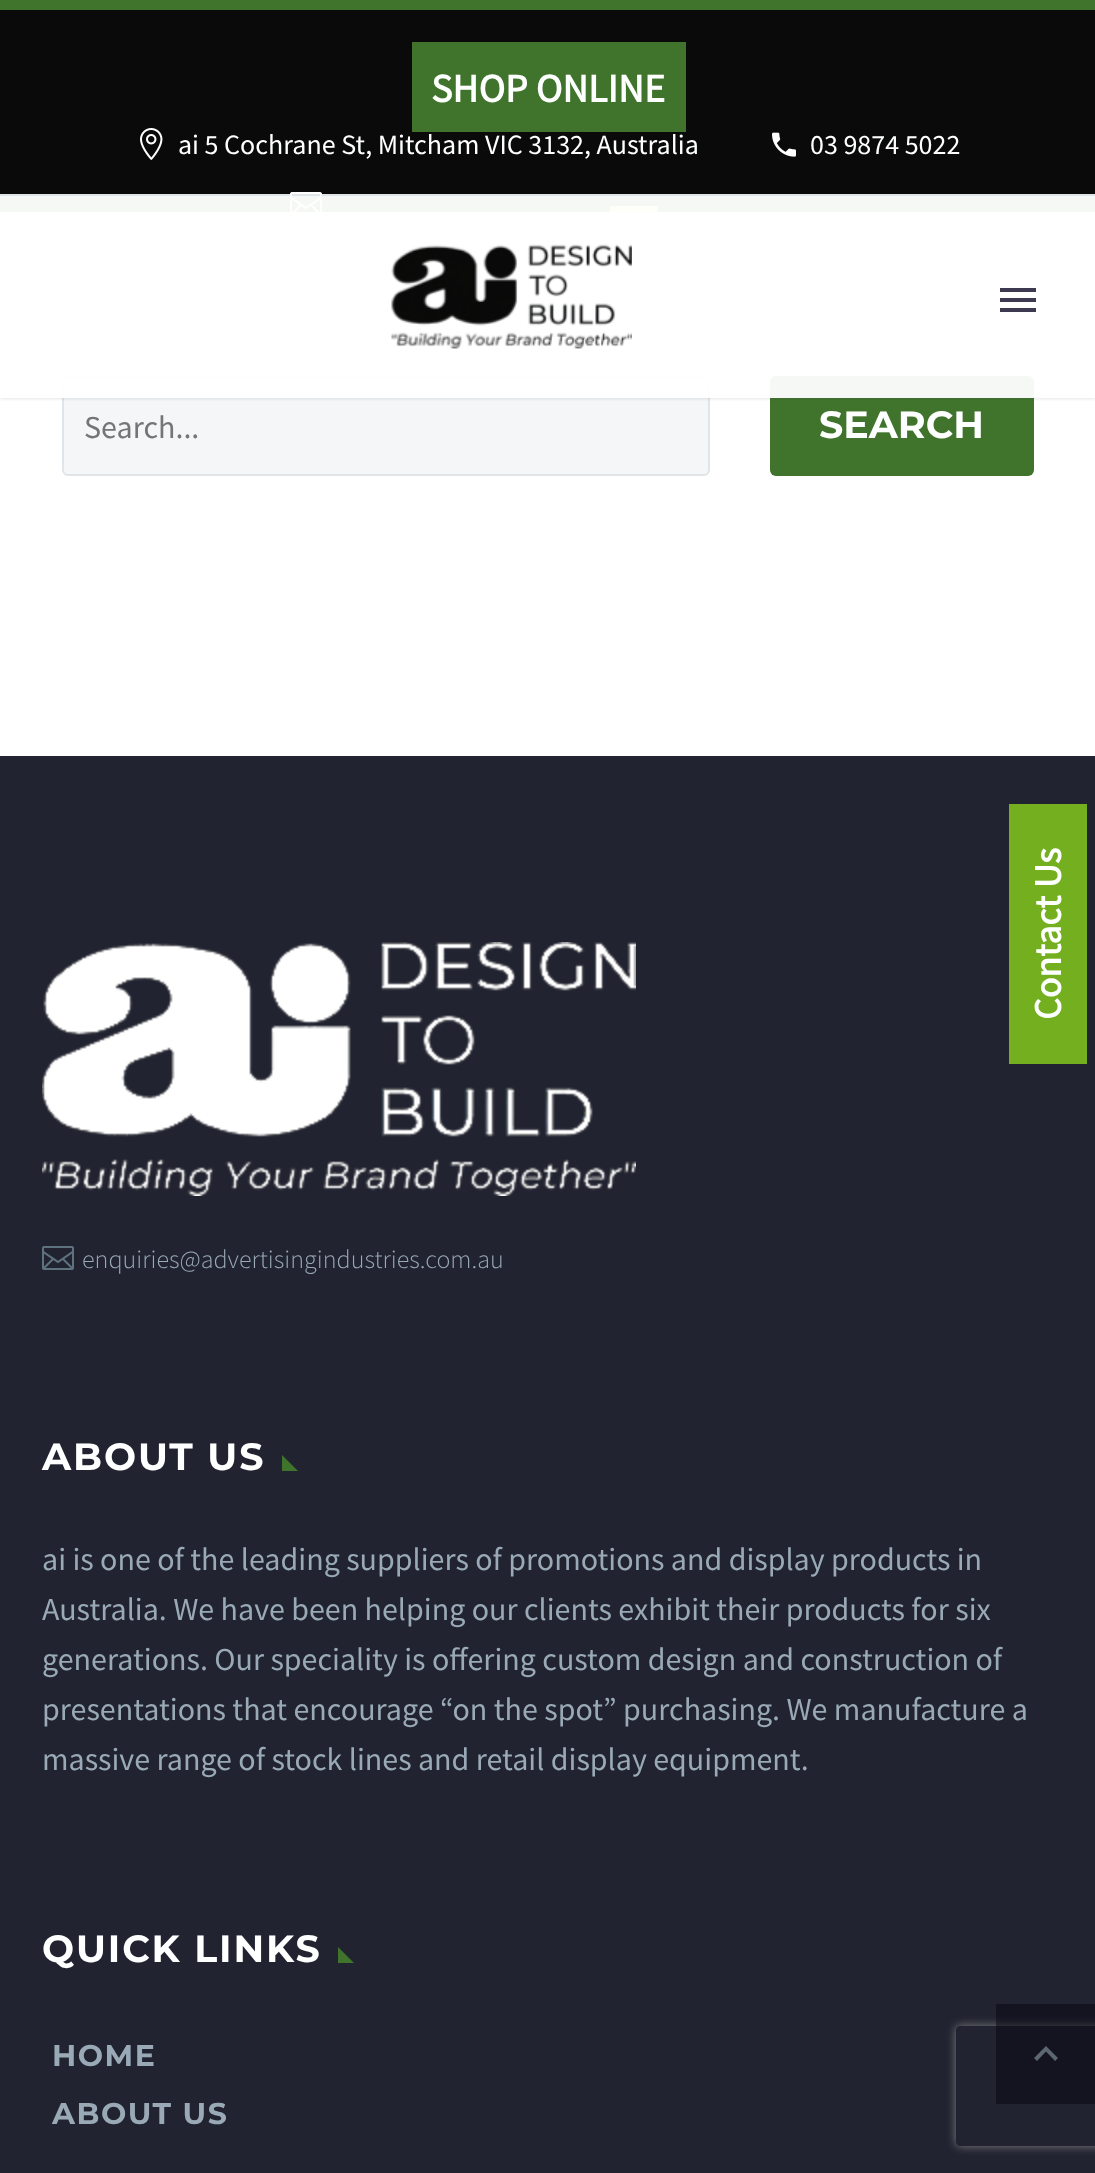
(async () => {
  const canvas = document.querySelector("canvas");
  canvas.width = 1095;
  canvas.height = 2173;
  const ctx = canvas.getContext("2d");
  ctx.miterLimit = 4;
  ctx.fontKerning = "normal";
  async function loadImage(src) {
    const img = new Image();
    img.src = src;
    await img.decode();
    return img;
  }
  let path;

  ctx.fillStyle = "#212331";
  ctx.fillRect(0, 0, 1095, 2173);
  for (const [x, y, w, h, color] of [
    [0, 196, 1095, 16, "#40732b"],
    [610, 206, 48, 6, "#e7ff89"],
    [0, 212, 1095, 544, "#ffffff"],
  ]) {
    ctx.fillStyle = color;
    ctx.fillRect(x, y, w, h);
  }
  ctx.fillStyle = "#f4f6f7";
  ctx.beginPath();
  ctx.roundRect(63, 377, 646, 98, 5);
  ctx.fill();
  ctx.strokeStyle = "#dfe5e8";
  ctx.lineWidth = 2;
  ctx.stroke();
  ctx.fillStyle = "#40732b";
  ctx.beginPath();
  ctx.roundRect(770, 376, 264, 100, 6);
  ctx.fill();
  ctx.save();
  ctx.beginPath();
  ctx.rect(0, 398, 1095, 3);
  ctx.clip();
  ctx.fillStyle = "rgba(56, 69, 84, 0.2)";
  ctx.filter = "blur(2px)";
  ctx.beginPath();
  ctx.rect(0, 0, 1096, 398);
  ctx.fill();
  ctx.filter = "none";
  ctx.restore();
  for (const [x, y, w, h, color] of [
    [0, 196, 1095, 202, "rgba(255, 255, 255, 0.95)"],
    [0, 10, 1095, 184, "#0a0a0a"],
    [0, 0, 1095, 10, "#40732b"],
    [0, 194, 1095, 2, "#dfe5e8"],
    [412, 42, 274, 90, "#40732b"],
  ]) {
    ctx.fillStyle = color;
    ctx.fillRect(x, y, w, h);
  }
  ctx.drawImage(await loadImage("img/1.png"), 140, 128, 23, 32);
  ctx.drawImage(await loadImage("img/2.png"), 772, 132, 24, 25);
  ctx.drawImage(await loadImage("img/3.png"), 290, 192, 32, 20);
  ctx.drawImage(await loadImage("img/4.png"), 391, 244, 241, 105);
  for (const [x, y, w, h, color] of [
    [1000, 288, 36, 4, "#3c3950"],
    [1000, 298, 36, 4, "#3c3950"],
    [1000, 308, 36, 4, "#3c3950"],
  ]) {
    ctx.fillStyle = color;
    ctx.fillRect(x, y, w, h);
  }
  ctx.drawImage(await loadImage("img/5.png"), 42, 942, 594, 254);
  ctx.drawImage(await loadImage("img/6.png"), 42, 1246, 32, 24);
  ctx.fillStyle = "#40732b";
  path = new Path2D("M282 1455V1471H298Z");
  ctx.fill(path);
  path = new Path2D("M338 1947V1963H354Z");
  ctx.fill(path);
  ctx.save();
  path = new Path2D("M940 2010H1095V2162H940ZM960 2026H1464C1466 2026 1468 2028 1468 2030V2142C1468 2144 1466 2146 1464 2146H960C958 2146 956 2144 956 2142V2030C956 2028 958 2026 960 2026Z");
  ctx.clip(path, "evenodd");
  ctx.fillStyle = "#808080";
  ctx.filter = "blur(5px)";
  ctx.beginPath();
  ctx.roundRect(956, 2026, 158, 120, 4);
  ctx.fill();
  ctx.filter = "none";
  ctx.restore();
  ctx.fillStyle = "rgba(6, 6, 15, 0.5)";
  ctx.fillRect(996, 2004, 99, 100);
  ctx.fillStyle = "#5d6673";
  path = new Path2D("M1037 2061L1046 2051.5L1055 2061L1058 2058L1046 2046L1034 2058Z");
  ctx.fill(path);
  ctx.fillStyle = "#74af1f";
  ctx.fillRect(1009, 804, 78, 260);
  ctx.font = "bold 40px Source Sans Pro";
  ctx.fillStyle = "#feffff";
  ctx.fillText("SHOP ONLINE", 431, 102);
  ctx.font = "28px Source Sans Pro";
  ctx.fillText("ai 5 Cochrane St, Mitcham VIC 3132, Australia", 178, 154);
  ctx.fillText("03 9874 5022", 810, 154);
  ctx.font = "32px Source Sans Pro";
  ctx.fillStyle = "#757575";
  ctx.fillText("Search...", 84, 438);
  ctx.font = "bold 38px Montserrat";
  ctx.fillStyle = "#feffff";
  ctx.fillText("SEARCH", 819, 438);
  ctx.font = "300 26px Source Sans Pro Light";
  ctx.fillStyle = "#99a9b5";
  ctx.fillText("enquiries@advertisingindustries.com.au", 82, 1268);
  ctx.letterSpacing = "1.9px";
  ctx.font = "bold 38px Montserrat";
  ctx.fillStyle = "#feffff";
  ctx.fillText("ABOUT US", 42, 1470);
  ctx.letterSpacing = "0px";
  ctx.font = "32px Source Sans Pro";
  ctx.fillStyle = "#99a9b5";
  for (const [text, x, y] of [
    ["ai is one of the leading suppliers of promotions and display products in", 42, 1570],
    ["Australia. We have been helping our clients exhibit their products for six", 42, 1620],
    ["generations. Our speciality is offering custom design and construction of", 42, 1670],
    ["presentations that encourage “on the spot” purchasing. We manufacture a", 42, 1720],
    ["massive range of stock lines and retail display equipment.", 42, 1770],
  ]) {
    ctx.fillText(text, x, y);
  }
  ctx.letterSpacing = "1.9px";
  ctx.font = "bold 38px Montserrat";
  ctx.fillStyle = "#feffff";
  ctx.fillText("QUICK LINKS", 42, 1962);
  ctx.letterSpacing = "1.5px";
  ctx.font = "bold 30px Montserrat";
  ctx.fillStyle = "#99a9b5";
  ctx.fillText("HOME", 52, 2066);
  ctx.fillText("ABOUT US", 52, 2124);
  ctx.letterSpacing = "0px";
  ctx.font = "bold 38px Source Sans Pro";
  ctx.fillStyle = "#feffff";
  ctx.save();
  ctx.translate(1061, 1020);
  ctx.rotate(-90 * Math.PI / 180);
  ctx.fillText("Contact Us", 0, 0);
  ctx.restore();
})();
